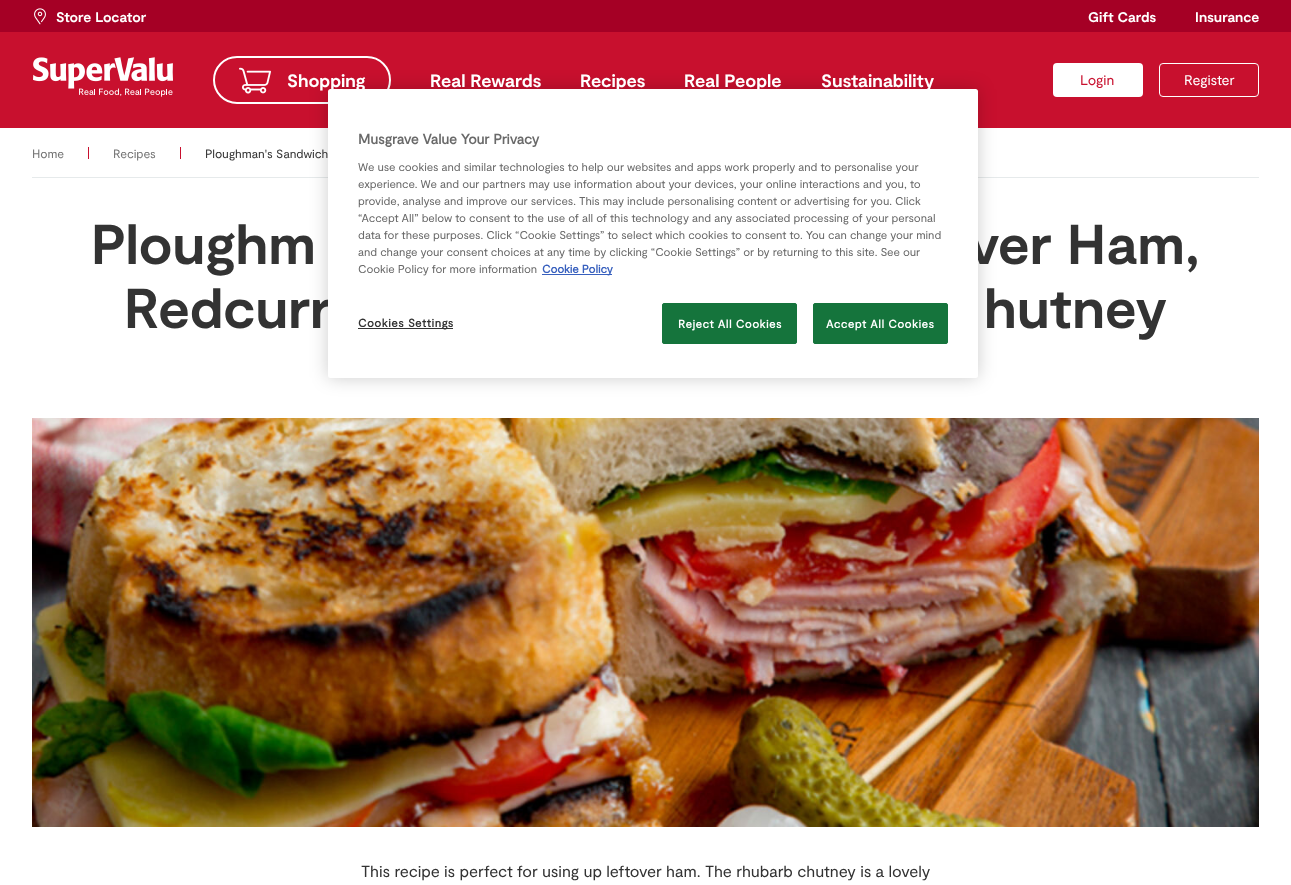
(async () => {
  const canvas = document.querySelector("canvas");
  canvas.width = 1291;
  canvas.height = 885;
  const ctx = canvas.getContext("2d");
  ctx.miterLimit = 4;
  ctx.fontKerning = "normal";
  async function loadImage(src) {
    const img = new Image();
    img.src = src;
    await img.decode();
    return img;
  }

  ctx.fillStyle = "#ffffff";
  ctx.fillRect(0, 0, 1291, 885);
  ctx.fillStyle = "#a50025";
  ctx.fillRect(0, 0, 1291, 32);
  ctx.drawImage(await loadImage("img/1.png"), 34, 8, 12, 17);
  ctx.fillStyle = "#c8102e";
  ctx.fillRect(0, 32, 1291, 96);
  ctx.drawImage(await loadImage("img/2.png"), 33, 57, 140, 40);
  ctx.beginPath();
  ctx.roundRect(214, 57, 176, 46, 23);
  ctx.strokeStyle = "#ffffff";
  ctx.lineWidth = 2;
  ctx.stroke();
  ctx.drawImage(await loadImage("img/3.png"), 239, 67, 32, 27);
  ctx.fillStyle = "#ffffff";
  ctx.beginPath();
  ctx.roundRect(1053, 63, 90, 34, 4);
  ctx.fill();
  ctx.beginPath();
  ctx.roundRect(1159.5, 63.5, 99, 33, 3.5);
  ctx.lineWidth = 1;
  ctx.stroke();
  for (const [x, y, w, h, color] of [
    [32, 177, 1227, 1, "#e6eaeb"],
    [88, 147, 1, 12, "#c8102e"],
    [180, 147, 1, 12, "#c8102e"],
  ]) {
    ctx.fillStyle = color;
    ctx.fillRect(x, y, w, h);
  }
  ctx.fillStyle = "rgba(0, 0, 0, 0.2)";
  ctx.filter = "blur(9px)";
  ctx.beginPath();
  ctx.roundRect(328, 89, 650, 289, 2.5);
  ctx.fill();
  ctx.filter = "none";
  ctx.drawImage(await loadImage("img/4.png"), 32, 418, 1227, 409);
  ctx.font = "bold 14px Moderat";
  ctx.fillStyle = "#ffffff";
  for (const [text, x, y] of [
    ["Store Locator", 56, 22],
    ["Gift Cards", 1088, 22],
    ["Insurance", 1195, 22],
  ]) {
    ctx.fillText(text, x, y);
  }
  ctx.font = "bold 18px Moderat";
  for (const [text, x, y] of [
    ["Shopping", 287, 87],
    ["Real Rewards", 430, 87],
    ["Recipes", 580, 87],
    ["Real People", 684, 87],
    ["Sustainability", 821, 87],
  ]) {
    ctx.fillText(text, x, y);
  }
  ctx.font = "14px Moderat";
  ctx.fillStyle = "#c8102e";
  ctx.fillText("Login", 1080, 85);
  ctx.fillStyle = "#ffffff";
  ctx.fillText("Register", 1184, 85);
  ctx.font = "12px Moderat";
  ctx.fillStyle = "#757575";
  ctx.fillText("Home", 32, 158);
  ctx.fillText("Recipes", 113, 158);
  ctx.fillStyle = "#333333";
  ctx.fillText("Ploughman's Sandwich", 205, 158);
  ctx.font = "bold 56px Moderat";
  for (const [text, x, y] of [
    ["Ploughm", 91, 264],
    ["ver Ham,", 968, 264],
    ["Redcurr", 124, 328],
  ]) {
    ctx.fillText(text, x, y);
  }
  ctx.fillStyle = "#ffffff";
  ctx.beginPath();
  ctx.roundRect(328, 89, 650, 289, 2.5);
  ctx.fill();
  ctx.fillStyle = "#15743c";
  ctx.beginPath();
  ctx.roundRect(813.5, 303.5, 134, 40, 1.5);
  ctx.fill();
  ctx.strokeStyle = "#15743c";
  ctx.stroke();
  ctx.letterSpacing = "0.6px";
  ctx.font = "bold 11.38px 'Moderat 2'";
  ctx.fillStyle = "#ffffff";
  ctx.fillText("Accept All Cookies", 826, 328);
  ctx.fillStyle = "#15743c";
  ctx.beginPath();
  ctx.roundRect(662.5, 303.5, 134, 40, 1.5);
  ctx.fill();
  ctx.stroke();
  ctx.fillStyle = "#ffffff";
  ctx.fillText("Reject All Cookies", 678, 328);
  ctx.fillStyle = "#333333";
  ctx.fillRect(358, 328, 95, 1);
  ctx.fillText("Cookies Settings", 358, 327);
  ctx.fillStyle = "#3860be";
  ctx.fillRect(542, 274, 70, 1);
  ctx.letterSpacing = "0px";
  ctx.fillText("Cookie Policy", 542, 273);
  ctx.font = "11.38px Moderat";
  ctx.fillStyle = "#696969";
  for (const [text, x, y] of [
    ["Cookie Policy for more information", 358, 273],
    ["and change your consent choices at any time by clicking “Cookie Settings” or by returning to this site. See our", 358, 256],
    ["data for these purposes. Click “Cookie Settings” to select which cookies to consent to. You can change your mind", 358, 239],
    ["“Accept All” below to consent to the use of all of this technology and any associated processing of your personal", 358, 222],
    ["provide, analyse and improve our services. This may include personalising content or advertising for you. Click", 358, 205],
    ["experience. We and our partners may use information about your devices, your online interactions and you, to", 358, 188],
    ["We use cookies and similar technologies to help our websites and apps work properly and to personalise your", 358, 171],
  ]) {
    ctx.fillText(text, x, y);
  }
  ctx.font = "bold 14px 'Moderat 2'";
  ctx.fillText("Musgrave Value Your Privacy", 358, 144);
  ctx.font = "bold 56px Moderat";
  ctx.fillStyle = "#333333";
  ctx.fillText("hutney", 984, 328);
  ctx.font = "16px Moderat";
  ctx.fillText("This recipe is perfect for using up leftover ham. The rhubarb chutney is a lovely", 361, 877);
})();
